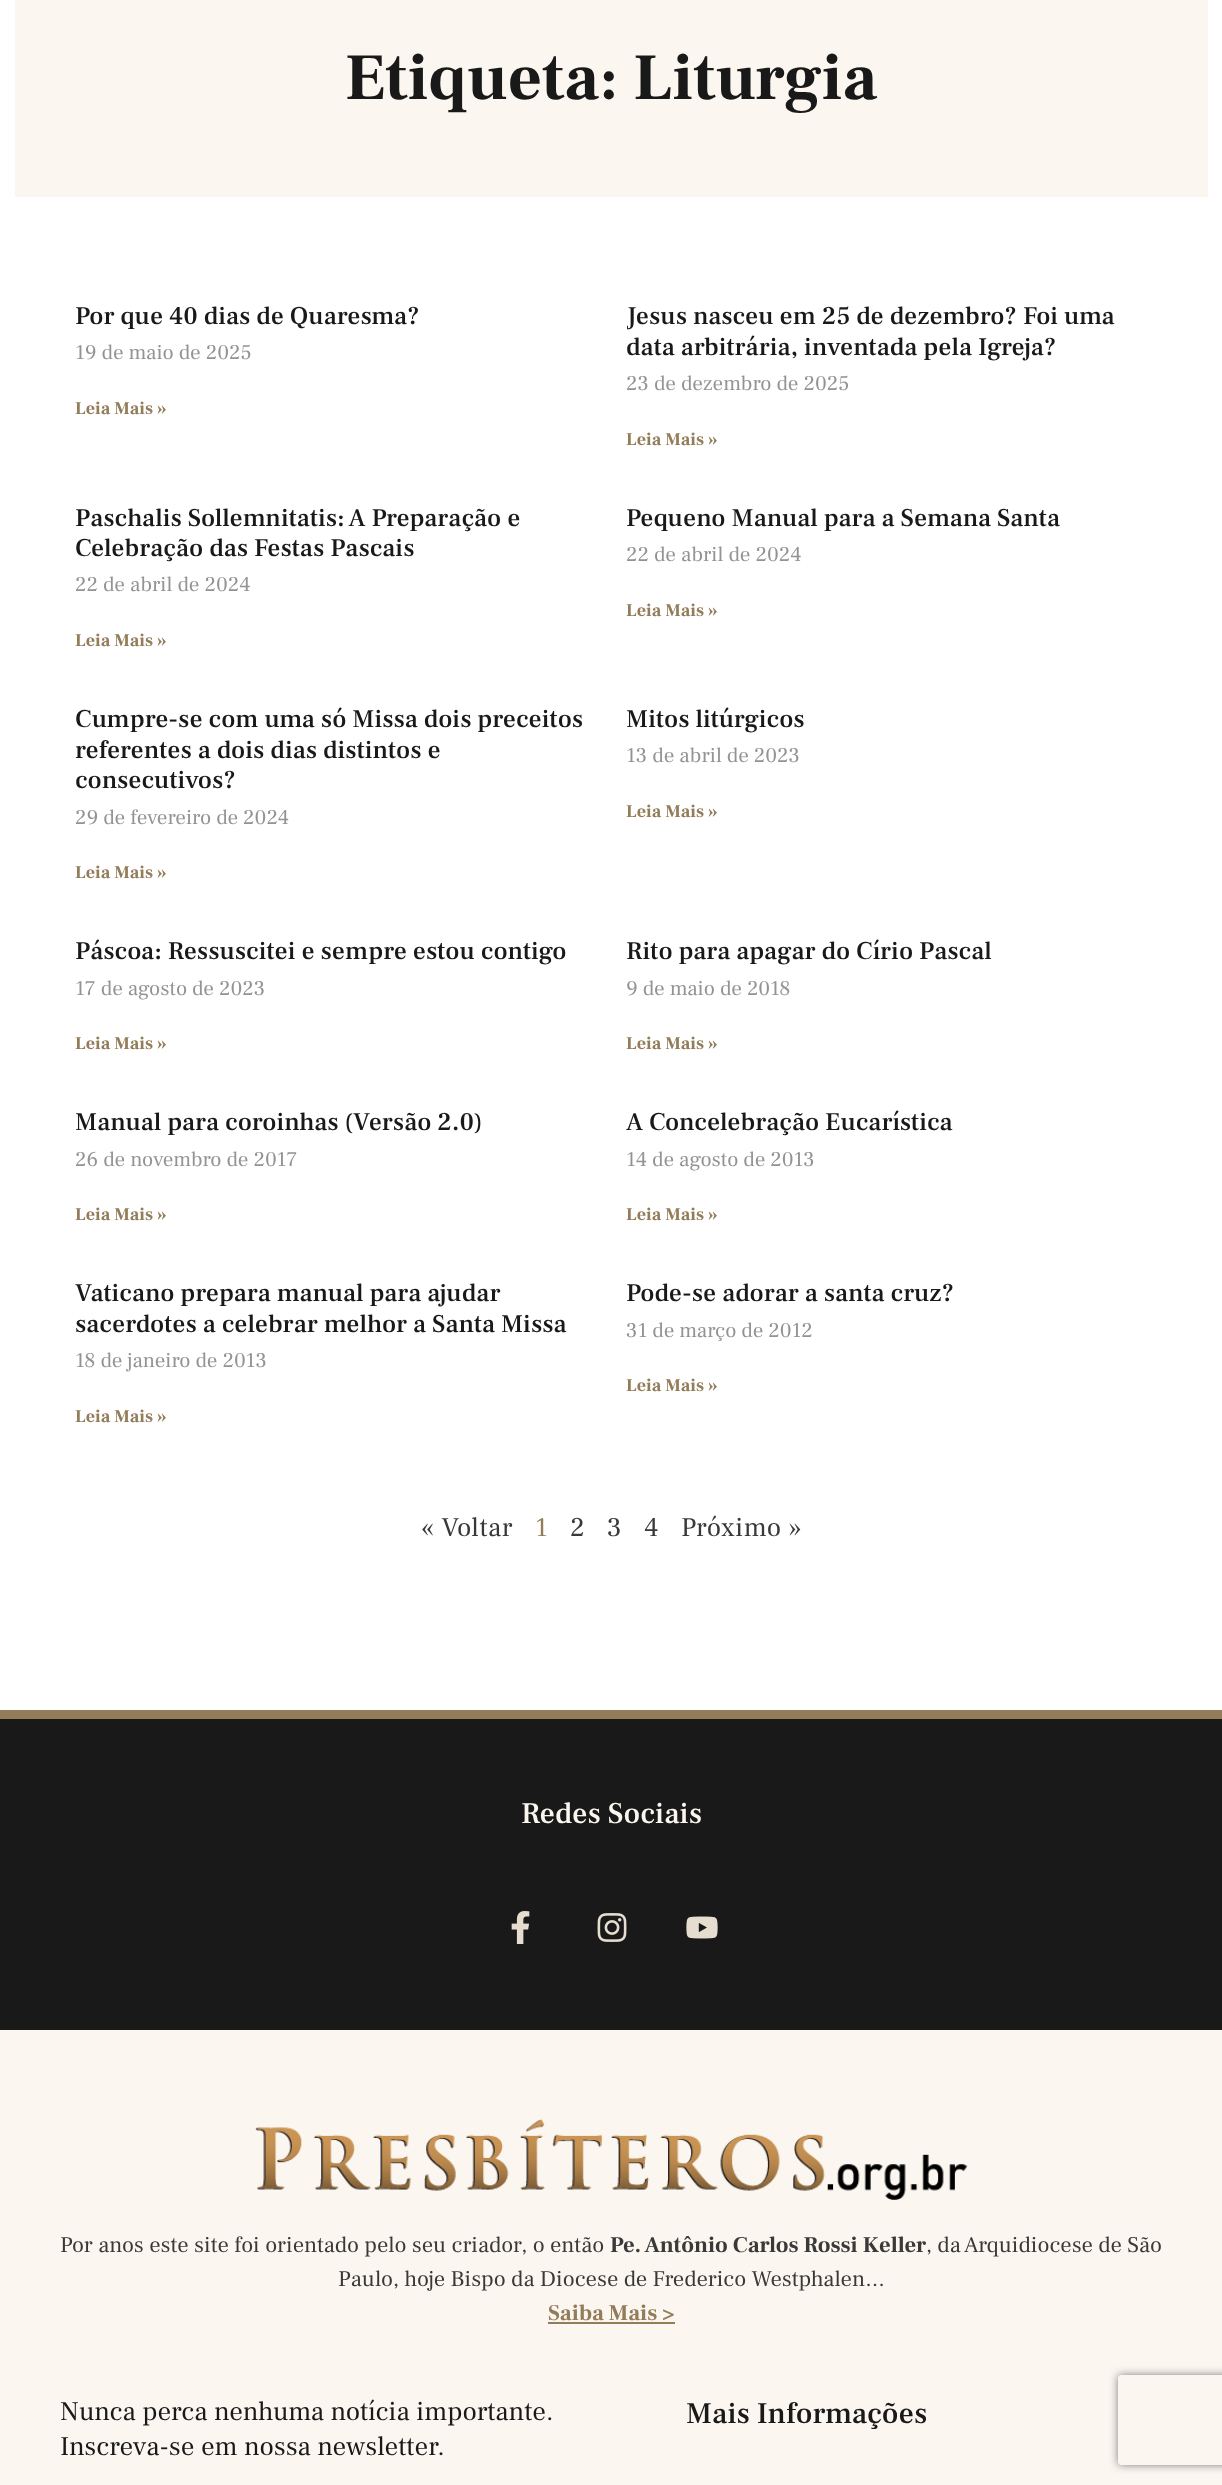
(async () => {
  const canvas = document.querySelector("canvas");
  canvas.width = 1222;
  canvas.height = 2485;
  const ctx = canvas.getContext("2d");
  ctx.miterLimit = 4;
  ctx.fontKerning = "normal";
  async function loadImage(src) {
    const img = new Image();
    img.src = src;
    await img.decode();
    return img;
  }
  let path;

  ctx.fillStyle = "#ffffff";
  ctx.fillRect(0, 0, 1222, 2485);
  for (const [x, y, w, h, color] of [
    [15, 0, 1193, 197, "#fbf6ef"],
    [0, 1719, 1222, 311, "#191919"],
    [0, 1710, 1222, 9, "#927c59"],
  ]) {
    ctx.fillStyle = color;
    ctx.fillRect(x, y, w, h);
  }
  ctx.drawImage(await loadImage("img/1.png"), 511, 1911, 19, 33);
  ctx.drawImage(await loadImage("img/2.png"), 597, 1913, 30, 29);
  ctx.drawImage(await loadImage("img/3.png"), 686, 1916, 32, 23);
  ctx.fillStyle = "#fbf6ef";
  ctx.fillRect(0, 2030, 1222, 455);
  ctx.drawImage(await loadImage("img/4.png"), 255, 2119, 713, 81);
  ctx.fillStyle = "#927c59";
  ctx.fillRect(548, 2322, 127, 2);
  ctx.save();
  path = new Path2D("M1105 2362H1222V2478H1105ZM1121 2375H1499C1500.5 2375 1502 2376.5 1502 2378V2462C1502 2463.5 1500.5 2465 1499 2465H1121C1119.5 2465 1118 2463.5 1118 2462V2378C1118 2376.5 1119.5 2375 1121 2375Z");
  ctx.clip(path, "evenodd");
  ctx.fillStyle = "#808080";
  ctx.filter = "blur(4px)";
  ctx.beginPath();
  ctx.roundRect(1118, 2375, 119, 90, 3);
  ctx.fill();
  ctx.filter = "none";
  ctx.restore();
  ctx.font = "bold 66px Frank Ruhl Libre";
  ctx.fillStyle = "#191919";
  ctx.fillText("Etiqueta: Liturgia", 345, 99);
  ctx.font = "500 25.5px Frank Ruhl Libre";
  ctx.fillText("Por que 40 dias de Quaresma?", 75, 324);
  ctx.font = "21px Frank Ruhl Libre";
  ctx.fillStyle = "#939393";
  ctx.fillText("19 de maio de 2025", 75, 359);
  ctx.font = "bold 18px Frank Ruhl Libre";
  ctx.fillStyle = "#927c59";
  ctx.fillText("Leia Mais »", 75, 414);
  ctx.save();
  ctx.beginPath();
  ctx.rect(627, 302, 521, 156);
  ctx.clip();
  ctx.font = "500 25.5px Frank Ruhl Libre";
  ctx.fillStyle = "#191919";
  ctx.fillText("Jesus nasceu em 25 de dezembro? Foi uma", 626, 324);
  ctx.restore();
  ctx.font = "500 25.5px Frank Ruhl Libre";
  ctx.fillStyle = "#191919";
  ctx.fillText("data arbitrária, inventada pela Igreja?", 626, 355);
  ctx.font = "21px Frank Ruhl Libre";
  ctx.fillStyle = "#939393";
  ctx.fillText("23 de dezembro de 2025", 626, 390);
  ctx.font = "bold 18px Frank Ruhl Libre";
  ctx.fillStyle = "#927c59";
  ctx.fillText("Leia Mais »", 626, 445);
  ctx.font = "500 25.5px Frank Ruhl Libre";
  ctx.fillStyle = "#191919";
  ctx.fillText("Paschalis Sollemnitatis: A Preparação e", 75, 526);
  ctx.fillText("Celebração das Festas Pascais", 75, 556);
  ctx.font = "21px Frank Ruhl Libre";
  ctx.fillStyle = "#939393";
  ctx.fillText("22 de abril de 2024", 75, 591);
  ctx.font = "bold 18px Frank Ruhl Libre";
  ctx.fillStyle = "#927c59";
  ctx.fillText("Leia Mais »", 75, 646);
  ctx.font = "500 25.5px Frank Ruhl Libre";
  ctx.fillStyle = "#191919";
  ctx.fillText("Pequeno Manual para a Semana Santa", 626, 526);
  ctx.font = "21px Frank Ruhl Libre";
  ctx.fillStyle = "#939393";
  ctx.fillText("22 de abril de 2024", 626, 561);
  ctx.font = "bold 18px Frank Ruhl Libre";
  ctx.fillStyle = "#927c59";
  ctx.fillText("Leia Mais »", 626, 616);
  ctx.font = "500 25.5px Frank Ruhl Libre";
  ctx.fillStyle = "#191919";
  for (const [text, x, y] of [
    ["Cumpre-se com uma só Missa dois preceitos", 75, 727],
    ["referentes a dois dias distintos e", 75, 758],
    ["consecutivos?", 75, 788],
  ]) {
    ctx.fillText(text, x, y);
  }
  ctx.font = "21px Frank Ruhl Libre";
  ctx.fillStyle = "#939393";
  ctx.fillText("29 de fevereiro de 2024", 75, 824);
  ctx.font = "bold 18px Frank Ruhl Libre";
  ctx.fillStyle = "#927c59";
  ctx.fillText("Leia Mais »", 75, 878);
  ctx.font = "500 25.5px Frank Ruhl Libre";
  ctx.fillStyle = "#191919";
  ctx.fillText("Mitos litúrgicos", 626, 727);
  ctx.font = "21px Frank Ruhl Libre";
  ctx.fillStyle = "#939393";
  ctx.fillText("13 de abril de 2023", 626, 762);
  ctx.font = "bold 18px Frank Ruhl Libre";
  ctx.fillStyle = "#927c59";
  ctx.fillText("Leia Mais »", 626, 817);
  ctx.font = "500 25.5px Frank Ruhl Libre";
  ctx.fillStyle = "#191919";
  ctx.fillText("Páscoa: Ressuscitei e sempre estou contigo", 75, 959);
  ctx.font = "21px Frank Ruhl Libre";
  ctx.fillStyle = "#939393";
  ctx.fillText("17 de agosto de 2023", 75, 995);
  ctx.font = "bold 18px Frank Ruhl Libre";
  ctx.fillStyle = "#927c59";
  ctx.fillText("Leia Mais »", 75, 1049);
  ctx.font = "500 25.5px Frank Ruhl Libre";
  ctx.fillStyle = "#191919";
  ctx.fillText("Rito para apagar do Círio Pascal", 626, 959);
  ctx.font = "21px Frank Ruhl Libre";
  ctx.fillStyle = "#939393";
  ctx.fillText("9 de maio de 2018", 626, 995);
  ctx.font = "bold 18px Frank Ruhl Libre";
  ctx.fillStyle = "#927c59";
  ctx.fillText("Leia Mais »", 626, 1049);
  ctx.font = "500 25.5px Frank Ruhl Libre";
  ctx.fillStyle = "#191919";
  ctx.fillText("Manual para coroinhas (Versão 2.0)", 75, 1130);
  ctx.font = "21px Frank Ruhl Libre";
  ctx.fillStyle = "#939393";
  ctx.fillText("26 de novembro de 2017", 75, 1166);
  ctx.font = "bold 18px Frank Ruhl Libre";
  ctx.fillStyle = "#927c59";
  ctx.fillText("Leia Mais »", 75, 1220);
  ctx.font = "500 25.5px Frank Ruhl Libre";
  ctx.fillStyle = "#191919";
  ctx.fillText("A Concelebração Eucarística", 626, 1130);
  ctx.font = "21px Frank Ruhl Libre";
  ctx.fillStyle = "#939393";
  ctx.fillText("14 de agosto de 2013", 626, 1166);
  ctx.font = "bold 18px Frank Ruhl Libre";
  ctx.fillStyle = "#927c59";
  ctx.fillText("Leia Mais »", 626, 1220);
  ctx.font = "500 25.5px Frank Ruhl Libre";
  ctx.fillStyle = "#191919";
  ctx.fillText("Vaticano prepara manual para ajudar", 75, 1301);
  ctx.fillText("sacerdotes a celebrar melhor a Santa Missa", 75, 1332);
  ctx.font = "21px Frank Ruhl Libre";
  ctx.fillStyle = "#939393";
  ctx.fillText("18 de janeiro de 2013", 75, 1367);
  ctx.font = "bold 18px Frank Ruhl Libre";
  ctx.fillStyle = "#927c59";
  ctx.fillText("Leia Mais »", 75, 1422);
  ctx.font = "500 25.5px Frank Ruhl Libre";
  ctx.fillStyle = "#191919";
  ctx.fillText("Pode-se adorar a santa cruz?", 626, 1301);
  ctx.font = "21px Frank Ruhl Libre";
  ctx.fillStyle = "#939393";
  ctx.fillText("31 de março de 2012", 626, 1337);
  ctx.font = "bold 18px Frank Ruhl Libre";
  ctx.fillStyle = "#927c59";
  ctx.fillText("Leia Mais »", 626, 1391);
  ctx.letterSpacing = "0.5px";
  ctx.font = "27px Frank Ruhl Libre";
  ctx.fillStyle = "#393939";
  ctx.fillText("« Voltar", 421, 1536);
  ctx.fillStyle = "#927c59";
  ctx.fillText("1", 535, 1536);
  ctx.fillStyle = "#393939";
  for (const [text, x, y] of [
    ["2", 570, 1536],
    ["3", 607, 1536],
    ["4", 644, 1536],
    ["Próximo »", 681, 1536],
  ]) {
    ctx.fillText(text, x, y);
  }
  ctx.letterSpacing = "0px";
  ctx.font = "500 30px Frank Ruhl Libre";
  ctx.fillStyle = "#fbf6ef";
  ctx.fillText("Redes Sociais", 521, 1823);
  ctx.font = "22.5px Frank Ruhl Libre";
  ctx.fillStyle = "#393939";
  ctx.fillText("Por anos este site foi orientado pelo seu criador, o então", 60, 2252);
  ctx.font = "bold 22.5px Frank Ruhl Libre";
  ctx.fillText("Pe. Antônio Carlos Rossi Keller", 610, 2252);
  ctx.font = "22.5px Frank Ruhl Libre";
  ctx.fillText(", da Arquidiocese de São", 926, 2252);
  ctx.fillText("Paulo, hoje Bispo da Diocese de Frederico Westphalen…", 338, 2286);
  ctx.font = "bold 22.5px Frank Ruhl Libre";
  ctx.fillStyle = "#927c59";
  ctx.fillText("Saiba Mais >", 548, 2320);
  ctx.font = "27px Frank Ruhl Libre";
  ctx.fillStyle = "#191919";
  ctx.fillText("Nunca perca nenhuma notícia importante.", 60, 2420);
  ctx.fillText("Inscreva-se em nossa newsletter.", 60, 2455);
  ctx.font = "500 30px Frank Ruhl Libre";
  ctx.fillText("Mais Informações", 686, 2423);
})();
